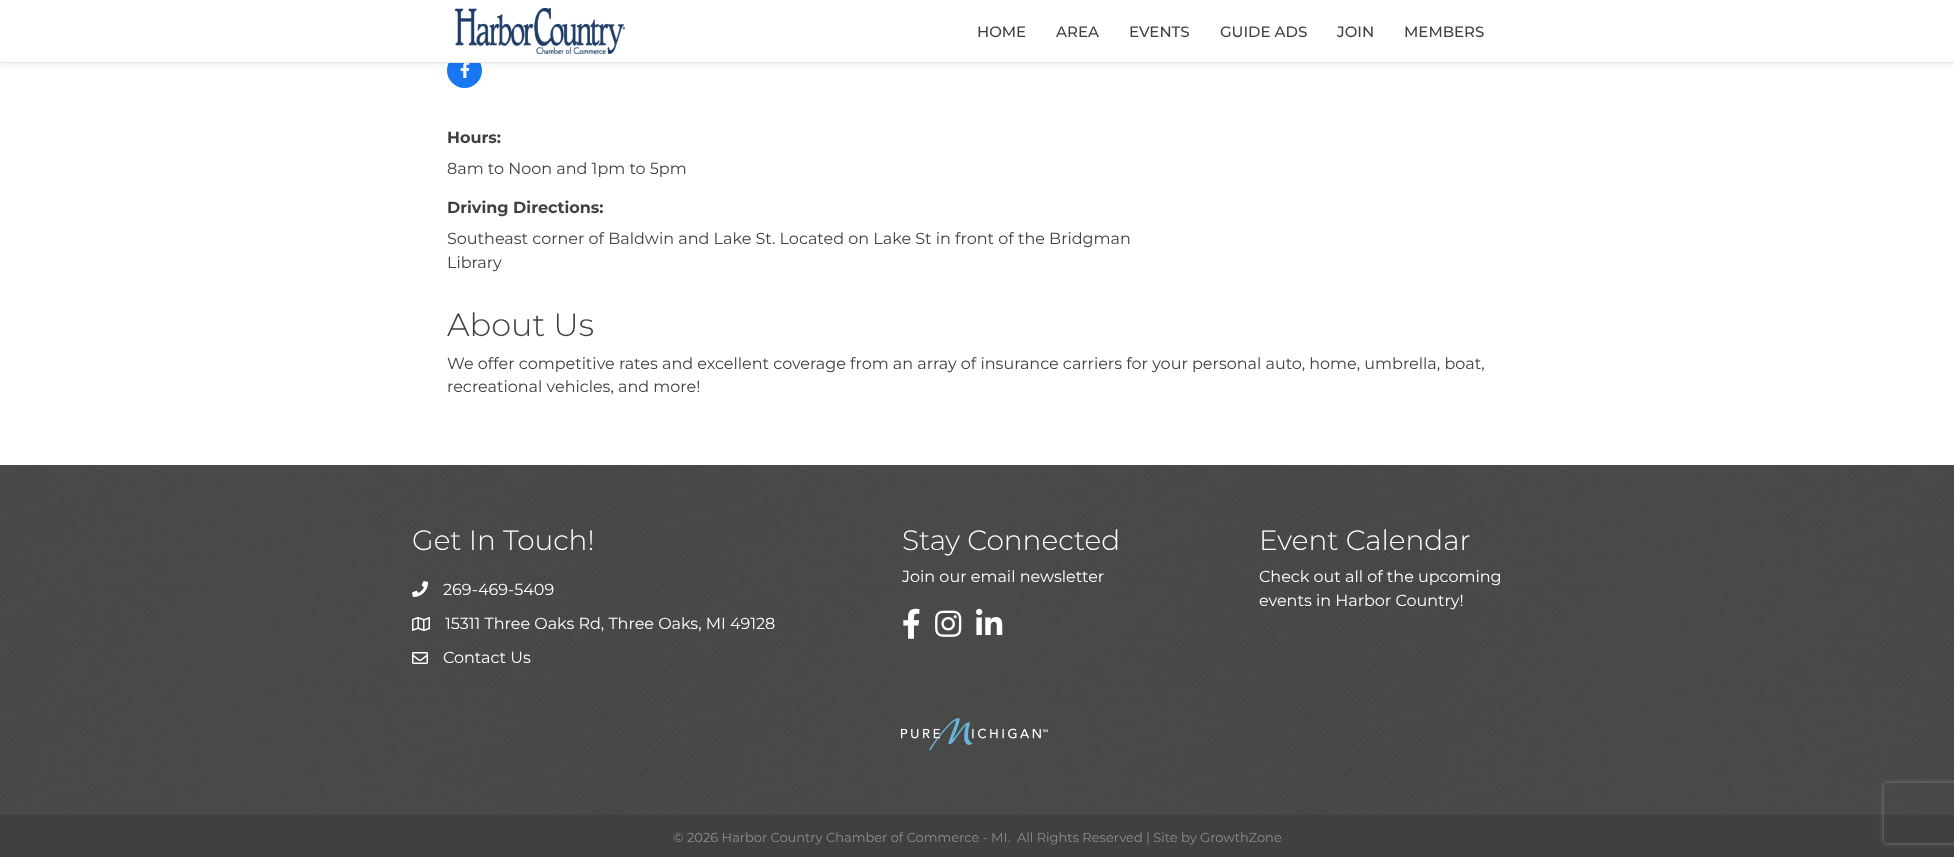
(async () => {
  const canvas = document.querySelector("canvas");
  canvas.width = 1954;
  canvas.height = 857;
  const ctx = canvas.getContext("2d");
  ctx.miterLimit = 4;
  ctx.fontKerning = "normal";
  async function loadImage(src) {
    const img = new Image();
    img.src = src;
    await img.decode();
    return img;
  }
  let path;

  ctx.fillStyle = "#ffffff";
  ctx.fillRect(0, 0, 1954, 857);
  ctx.fillStyle = "#1877f2";
  ctx.beginPath();
  ctx.arc(464.5, 70.5, 17.5, 0, Math.PI * 2);
  ctx.fill();
  ctx.drawImage(await loadImage("img/2.png"), 460, 63, 10, 15);
  ctx.fillStyle = "rgba(0, 0, 0, 0.1)";
  ctx.filter = "blur(3.5px)";
  ctx.beginPath();
  ctx.rect(0, 0, 1954, 63);
  ctx.fill();
  ctx.filter = "none";
  ctx.fillStyle = "#ffffff";
  ctx.fillRect(0, 0, 1954, 62);
  ctx.fillStyle = "#e6e6e6";
  ctx.fillRect(0, 62, 1954, 1);
  ctx.drawImage(await loadImage("img/1.png"), 454, 8, 171, 46);
  ctx.drawImage(await loadImage("img/3.png"), 0, 465, 1954, 350);
  ctx.drawImage(await loadImage("img/4.png"), 412, 581, 16, 16);
  ctx.drawImage(await loadImage("img/5.png"), 412, 617, 18, 14);
  ctx.drawImage(await loadImage("img/6.png"), 412, 652, 16, 12);
  ctx.drawImage(await loadImage("img/7.png"), 903, 608, 17, 31);
  ctx.drawImage(await loadImage("img/8.png"), 935, 610, 27, 27);
  ctx.drawImage(await loadImage("img/9.png"), 976, 608, 27, 27);
  ctx.drawImage(await loadImage("img/10.png"), 901, 718, 147, 32);
  ctx.fillStyle = "#40403f";
  ctx.fillRect(0, 815, 1954, 42);
  ctx.save();
  path = new Path2D("M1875 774H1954V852H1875ZM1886 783H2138C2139 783 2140 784 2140 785V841C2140 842 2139 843 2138 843H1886C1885 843 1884 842 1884 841V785C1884 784 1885 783 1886 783Z");
  ctx.clip(path, "evenodd");
  ctx.fillStyle = "#808080";
  ctx.filter = "blur(2.5px)";
  ctx.beginPath();
  ctx.roundRect(1884, 783, 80, 60, 2);
  ctx.fill();
  ctx.filter = "none";
  ctx.restore();
  ctx.font = "500 15px Montserrat";
  for (const [text, x, y] of [
    ["HOME", 977, 37],
    ["AREA", 1056, 37],
    ["EVENTS", 1129, 37],
    ["GUIDE ADS", 1220, 37],
    ["JOIN", 1337, 37],
    ["MEMBERS", 1404, 37],
  ]) {
    ctx.fillText(text, x, y);
  }
  ctx.font = "bold 16px Montserrat";
  ctx.fillText("Hours:", 447, 143);
  ctx.font = "16px Montserrat";
  ctx.fillText("8am to Noon and 1pm to 5pm", 447, 174);
  ctx.font = "bold 16px Montserrat";
  ctx.fillText("Driving Directions:", 447, 213);
  ctx.font = "16px Montserrat";
  ctx.fillText("Southeast corner of Baldwin and Lake St. Located on Lake St in front of the Bridgman", 447, 244);
  ctx.fillText("Library", 447, 268);
  ctx.font = "300 32px Montserrat";
  ctx.fillText("About Us", 447, 336);
  ctx.font = "16px Montserrat";
  ctx.fillText("We offer competitive rates and excellent coverage from an array of insurance carriers for your personal auto, home, umbrella, boat,", 447, 369);
  ctx.fillText("recreational vehicles, and more!", 447, 392);
  ctx.font = "300 28px Montserrat";
  ctx.fillStyle = "#ffffff";
  ctx.fillText("Get In Touch!", 412, 550);
  ctx.font = "16px Montserrat";
  for (const [text, x, y] of [
    ["269-469-5409", 443, 595],
    ["15311 Three Oaks Rd, Three Oaks, MI 49128", 445, 629],
    ["Contact Us", 443, 663],
  ]) {
    ctx.fillText(text, x, y);
  }
  ctx.font = "300 28px Montserrat";
  ctx.fillText("Stay Connected", 902, 550);
  ctx.font = "16px Montserrat";
  ctx.fillText("Join our email newsletter", 902, 582);
  ctx.font = "300 28px Montserrat";
  ctx.fillText("Event Calendar", 1259, 550);
  ctx.font = "16px Montserrat";
  ctx.fillText("Check out all of the upcoming", 1259, 582);
  ctx.fillText("events in Harbor Country!", 1259, 606);
  ctx.font = "13px Montserrat";
  ctx.fillStyle = "#8c8c8c";
  ctx.fillText("© 2026 Harbor Country Chamber of Commerce - MI.", 673, 842);
  ctx.fillText("All Rights Reserved | Site by GrowthZone", 1017, 842);
})();
